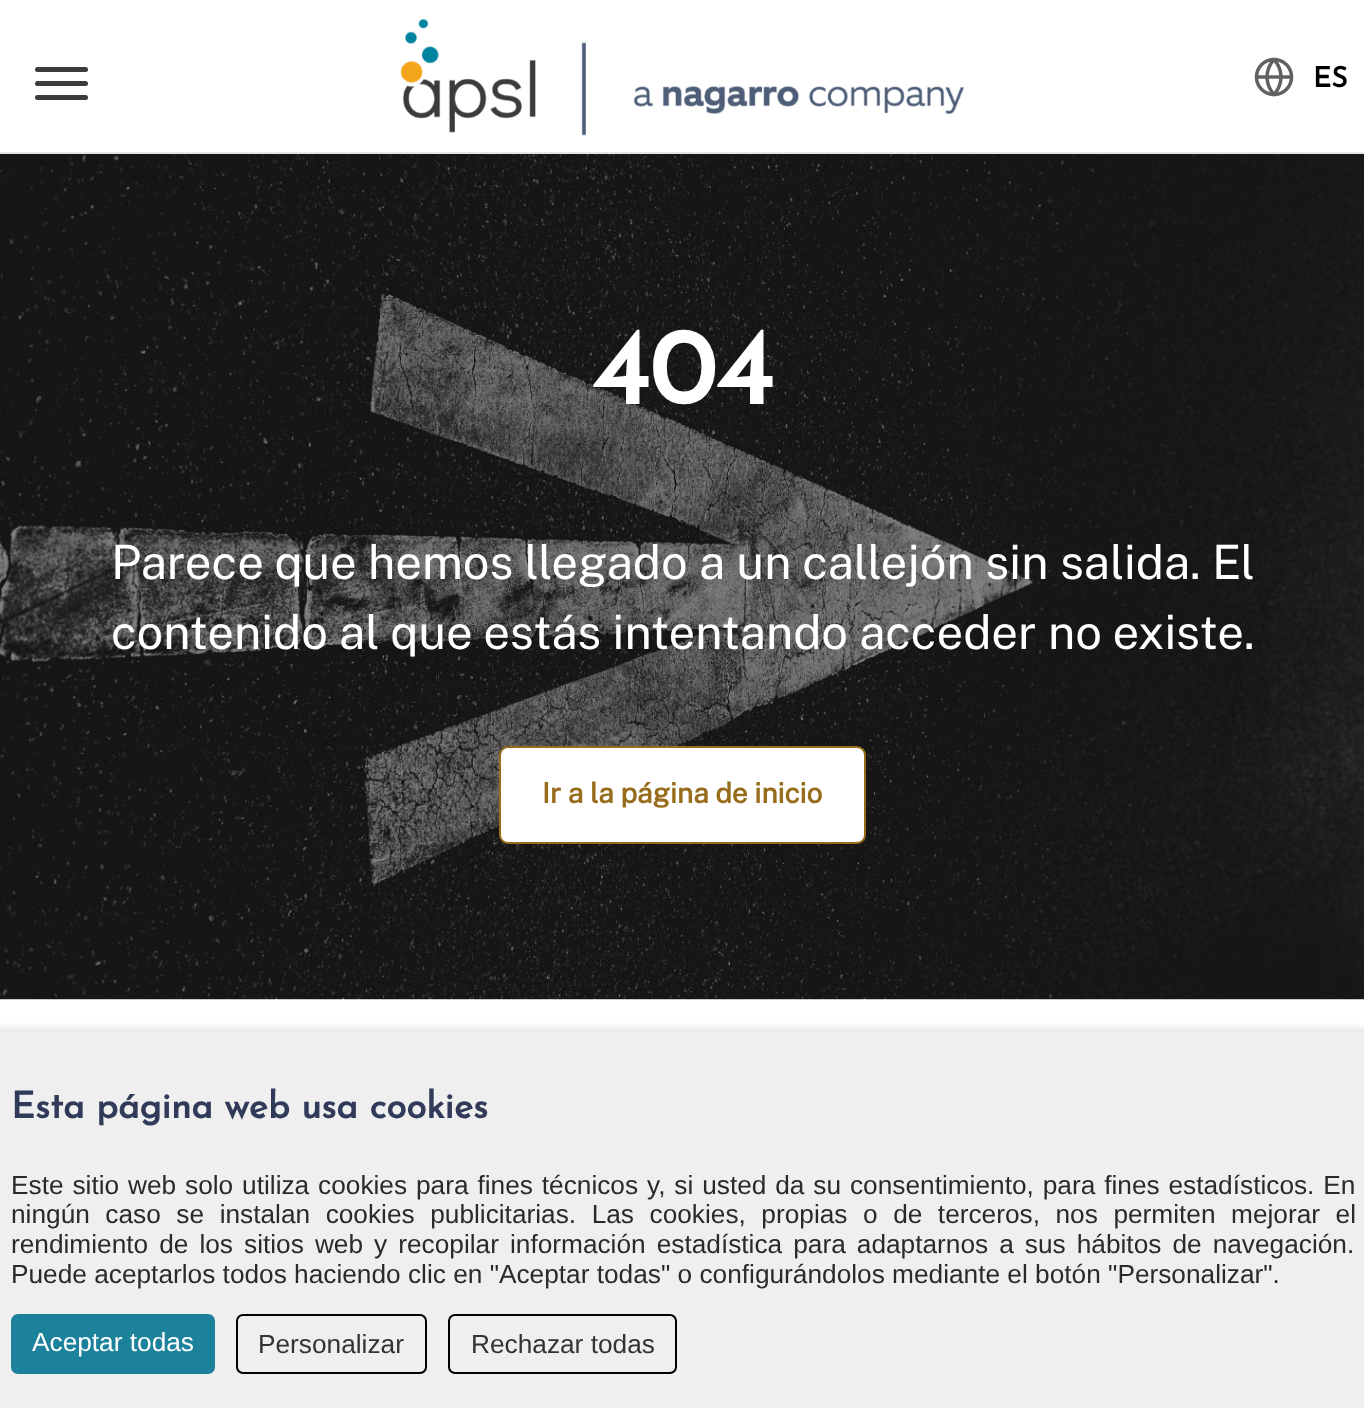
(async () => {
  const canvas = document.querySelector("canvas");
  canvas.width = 1364;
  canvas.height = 1408;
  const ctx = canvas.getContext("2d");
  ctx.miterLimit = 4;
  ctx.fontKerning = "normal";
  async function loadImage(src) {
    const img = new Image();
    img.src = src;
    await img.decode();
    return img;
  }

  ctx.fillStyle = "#ffffff";
  ctx.fillRect(0, 0, 1364, 1408);
  ctx.fillStyle = "#e6e6e6";
  ctx.fillRect(0, 152, 1364, 2);
  ctx.fillStyle = "#3c3c3c";
  ctx.beginPath();
  ctx.roundRect(35, 81, 53, 5, 2.5);
  ctx.fill();
  ctx.beginPath();
  ctx.roundRect(35, 67, 53, 5, 2.5);
  ctx.fill();
  ctx.beginPath();
  ctx.roundRect(35, 95, 53, 5, 2.5);
  ctx.fill();
  ctx.drawImage(await loadImage("img/1.png"), 400, 19, 565, 117);
  ctx.drawImage(await loadImage("img/2.png"), 1254, 57, 40, 40);
  ctx.drawImage(await loadImage("img/3.png"), 0, 154, 1364, 846);
  ctx.fillStyle = "#ffffff";
  ctx.beginPath();
  ctx.roundRect(500, 747, 365, 96, 8);
  ctx.fill();
  ctx.strokeStyle = "#976c1b";
  ctx.lineWidth = 2;
  ctx.stroke();
  ctx.fillStyle = "#cccccc";
  ctx.filter = "blur(4.5px)";
  ctx.beginPath();
  ctx.rect(-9, 1031, 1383, 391);
  ctx.fill();
  ctx.filter = "none";
  ctx.fillStyle = "#efefef";
  ctx.fillRect(0, 1031, 1364, 377);
  ctx.fillStyle = "#1c829c";
  ctx.beginPath();
  ctx.roundRect(11, 1314, 204, 60, 7);
  ctx.fill();
  ctx.beginPath();
  ctx.roundRect(237, 1315, 189, 58, 6);
  ctx.strokeStyle = "#000000";
  ctx.stroke();
  ctx.beginPath();
  ctx.roundRect(449, 1315, 227, 58, 6);
  ctx.stroke();
  ctx.font = "bold 28px Josefin Sans";
  ctx.fillStyle = "#000000";
  ctx.fillText("ES", 1313, 87);
  ctx.font = "bold 107px Josefin Sans";
  ctx.fillStyle = "#ffffff";
  ctx.fillText("404", 592, 404);
  ctx.font = "47.25px Public Sans";
  ctx.fillText("Parece que hemos llegado a un callejón sin salida. El", 111, 579);
  ctx.fillText("contenido al que estás intentando acceder no existe.", 111, 649);
  ctx.font = "bold 28px Public Sans";
  ctx.fillStyle = "#976c1b";
  ctx.fillText("Ir a la página de inicio", 542, 803);
  ctx.font = "bold 36.75px Josefin Sans";
  ctx.fillStyle = "#313b59";
  ctx.fillText("Esta página web usa cookies", 11, 1118);
  ctx.wordSpacing = "1.6px";
  ctx.font = "26.25px Liberation Sans";
  ctx.fillStyle = "#2a2a2a";
  ctx.fillText("Este sitio web solo utiliza cookies para fines técnicos y, si usted da su consentimiento, para fines estadísticos. En", 11, 1194);
  ctx.wordSpacing = "8.25px";
  ctx.fillText("ningún caso se instalan cookies publicitarias. Las cookies, propias o de terceros, nos permiten mejorar el", 11, 1223);
  ctx.wordSpacing = "3.75px";
  ctx.fillText("rendimiento de los sitios web y recopilar información estadística para adaptarnos a sus hábitos de navegación.", 11, 1253);
  ctx.wordSpacing = "0px";
  ctx.fillText("Puede aceptarlos todos haciendo clic en \"Aceptar todas\" o configurándolos mediante el botón \"Personalizar\".", 11, 1283);
  ctx.fillStyle = "#ffffff";
  ctx.fillText("Aceptar todas", 32, 1351);
  ctx.fillStyle = "#333333";
  ctx.fillText("Personalizar", 258, 1353);
  ctx.fillText("Rechazar todas", 471, 1353);
})();
